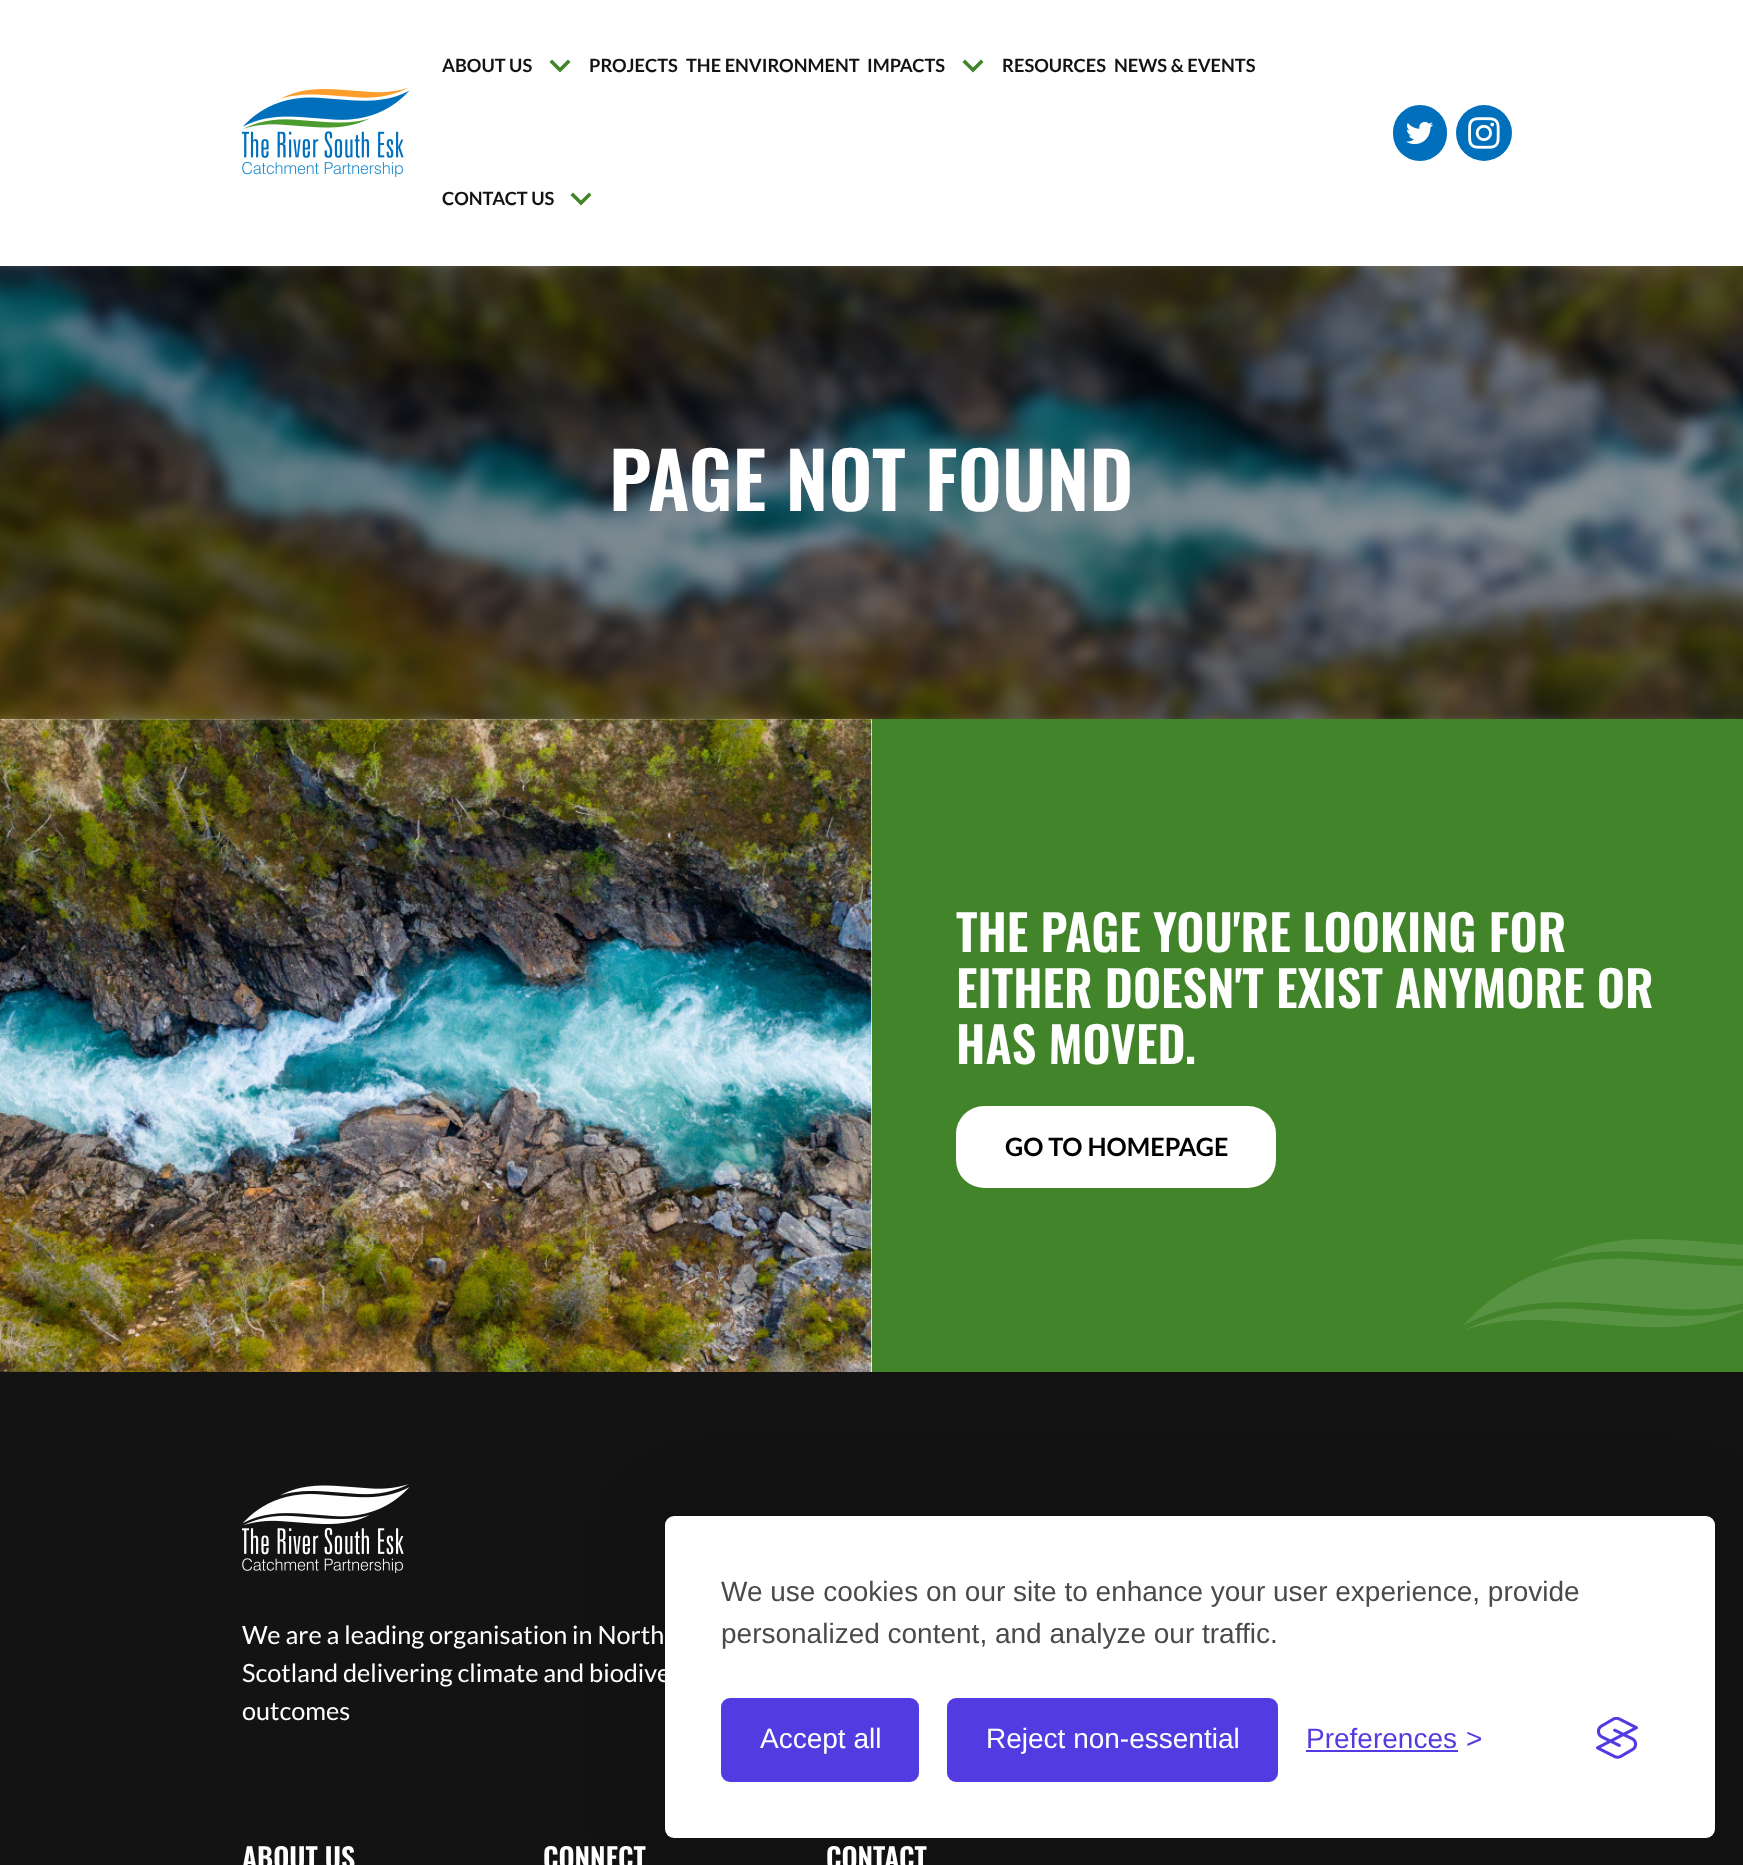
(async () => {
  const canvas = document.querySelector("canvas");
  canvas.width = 1743;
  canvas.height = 1865;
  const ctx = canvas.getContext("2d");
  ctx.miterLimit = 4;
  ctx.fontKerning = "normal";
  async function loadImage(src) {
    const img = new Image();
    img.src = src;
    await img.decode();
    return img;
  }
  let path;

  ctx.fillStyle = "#ffffff";
  ctx.fillRect(0, 0, 1743, 1865);
  ctx.drawImage(await loadImage("img/1.png"), 242, 87, 168, 91);
  ctx.fillStyle = "#42842a";
  path = new Path2D("M560 72.5L549.5 62L552 59.5L560 67.5L568 59.5L570.5 62Z");
  ctx.fill(path);
  path = new Path2D("M973 72.5L962.5 62L965 59.5L973 67.5L981 59.5L983.5 62Z");
  ctx.fill(path);
  path = new Path2D("M581 205.5L570.5 195L573 192.5L581 200.5L589 192.5L591.5 195Z");
  ctx.fill(path);
  ctx.fillStyle = "#0070bc";
  ctx.beginPath();
  ctx.roundRect(1393, 105, 54, 56, 27);
  ctx.fill();
  ctx.drawImage(await loadImage("img/2.png"), 1406, 121, 27, 24);
  ctx.beginPath();
  ctx.arc(1484, 133, 28, 0, Math.PI * 2);
  ctx.fill();
  ctx.drawImage(await loadImage("img/3.png"), 1468, 117, 32, 32);
  ctx.drawImage(await loadImage("img/4.png"), 0, 266, 1743, 454);
  ctx.drawImage(await loadImage("img/5.png"), 0, 719, 872, 653);
  ctx.fillStyle = "#42842a";
  ctx.fillRect(872, 719, 871, 653);
  ctx.fillStyle = "#ffffff";
  ctx.beginPath();
  ctx.roundRect(956, 1106, 320, 82, 28);
  ctx.fill();
  ctx.drawImage(await loadImage("img/6.png"), 1464, 1239, 279, 91);
  ctx.fillStyle = "#131313";
  ctx.fillRect(0, 1372, 1743, 493);
  ctx.drawImage(await loadImage("img/7.png"), 242, 1484, 168, 89);
  ctx.fillStyle = "rgba(0, 0, 0, 0.1)";
  ctx.filter = "blur(44px)";
  ctx.beginPath();
  ctx.roundRect(665, 1516, 1050, 322, 9);
  ctx.fill();
  ctx.filter = "none";
  ctx.fillStyle = "rgba(0, 0, 0, 0.07)";
  ctx.filter = "blur(9px)";
  ctx.beginPath();
  ctx.roundRect(656, 1524, 1050, 322, 9);
  ctx.fill();
  ctx.filter = "none";
  ctx.fillStyle = "#ffffff";
  ctx.beginPath();
  ctx.roundRect(665, 1516, 1050, 322, 9);
  ctx.fill();
  ctx.fillStyle = "#533be2";
  ctx.beginPath();
  ctx.roundRect(723, 1700, 194, 80, 7);
  ctx.fill();
  ctx.strokeStyle = "#533be2";
  ctx.lineWidth = 4;
  ctx.stroke();
  ctx.beginPath();
  ctx.roundRect(949, 1700, 327, 80, 7);
  ctx.fill();
  ctx.stroke();
  ctx.fillRect(1306, 1750, 152, 2);
  ctx.drawImage(await loadImage("img/8.png"), 1596, 1717, 42, 42);
  ctx.font = "bold 18.25px Lato";
  ctx.fillStyle = "#131313";
  for (const [text, x, y] of [
    ["ABOUT US", 442, 72],
    ["PROJECTS", 589, 72],
    ["THE ENVIRONMENT", 686, 72],
    ["IMPACTS", 867, 72],
    ["RESOURCES", 1002, 72],
    ["NEWS & EVENTS", 1114, 72],
    ["CONTACT US", 442, 205],
  ]) {
    ctx.fillText(text, x, y);
  }
  ctx.font = "600 77px Oswald";
  ctx.fillStyle = "#ffffff";
  ctx.fillText("PAGE NOT FOUND", 609, 511);
  ctx.font = "600 49px Oswald";
  for (const [text, x, y] of [
    ["THE PAGE YOU'RE LOOKING FOR", 956, 952],
    ["EITHER DOESN'T EXIST ANYMORE OR", 956, 1008],
    ["HAS MOVED.", 956, 1064],
  ]) {
    ctx.fillText(text, x, y);
  }
  ctx.font = "bold 25.25px Lato";
  ctx.fillStyle = "#000000";
  ctx.fillText("GO TO HOMEPAGE", 1005, 1156);
  ctx.font = "25.25px Lato";
  ctx.fillStyle = "#ffffff";
  for (const [text, x, y] of [
    ["We are a leading organisation in North", 242, 1644],
    ["Scotland delivering climate and biodive", 242, 1682],
    ["outcomes", 242, 1720],
  ]) {
    ctx.fillText(text, x, y);
  }
  ctx.font = "600 28px Oswald";
  for (const [text, x, y] of [
    ["ABOUT US", 242, 1869],
    ["CONNECT", 543, 1869],
    ["CONTACT", 826, 1869],
  ]) {
    ctx.fillText(text, x, y);
  }
  ctx.font = "28px Liberation Sans";
  ctx.fillStyle = "#4b494b";
  ctx.fillText("We use cookies on our site to enhance your user experience, provide", 721, 1601);
  ctx.fillText("personalized content, and analyze our traffic.", 721, 1643);
  ctx.fillStyle = "#ffffff";
  ctx.fillText("Accept all", 760, 1748);
  ctx.fillText("Reject non-essential", 986, 1748);
  ctx.fillStyle = "#533be2";
  ctx.fillText("Preferences", 1306, 1748);
  ctx.fillText(">", 1466, 1748);
})();
